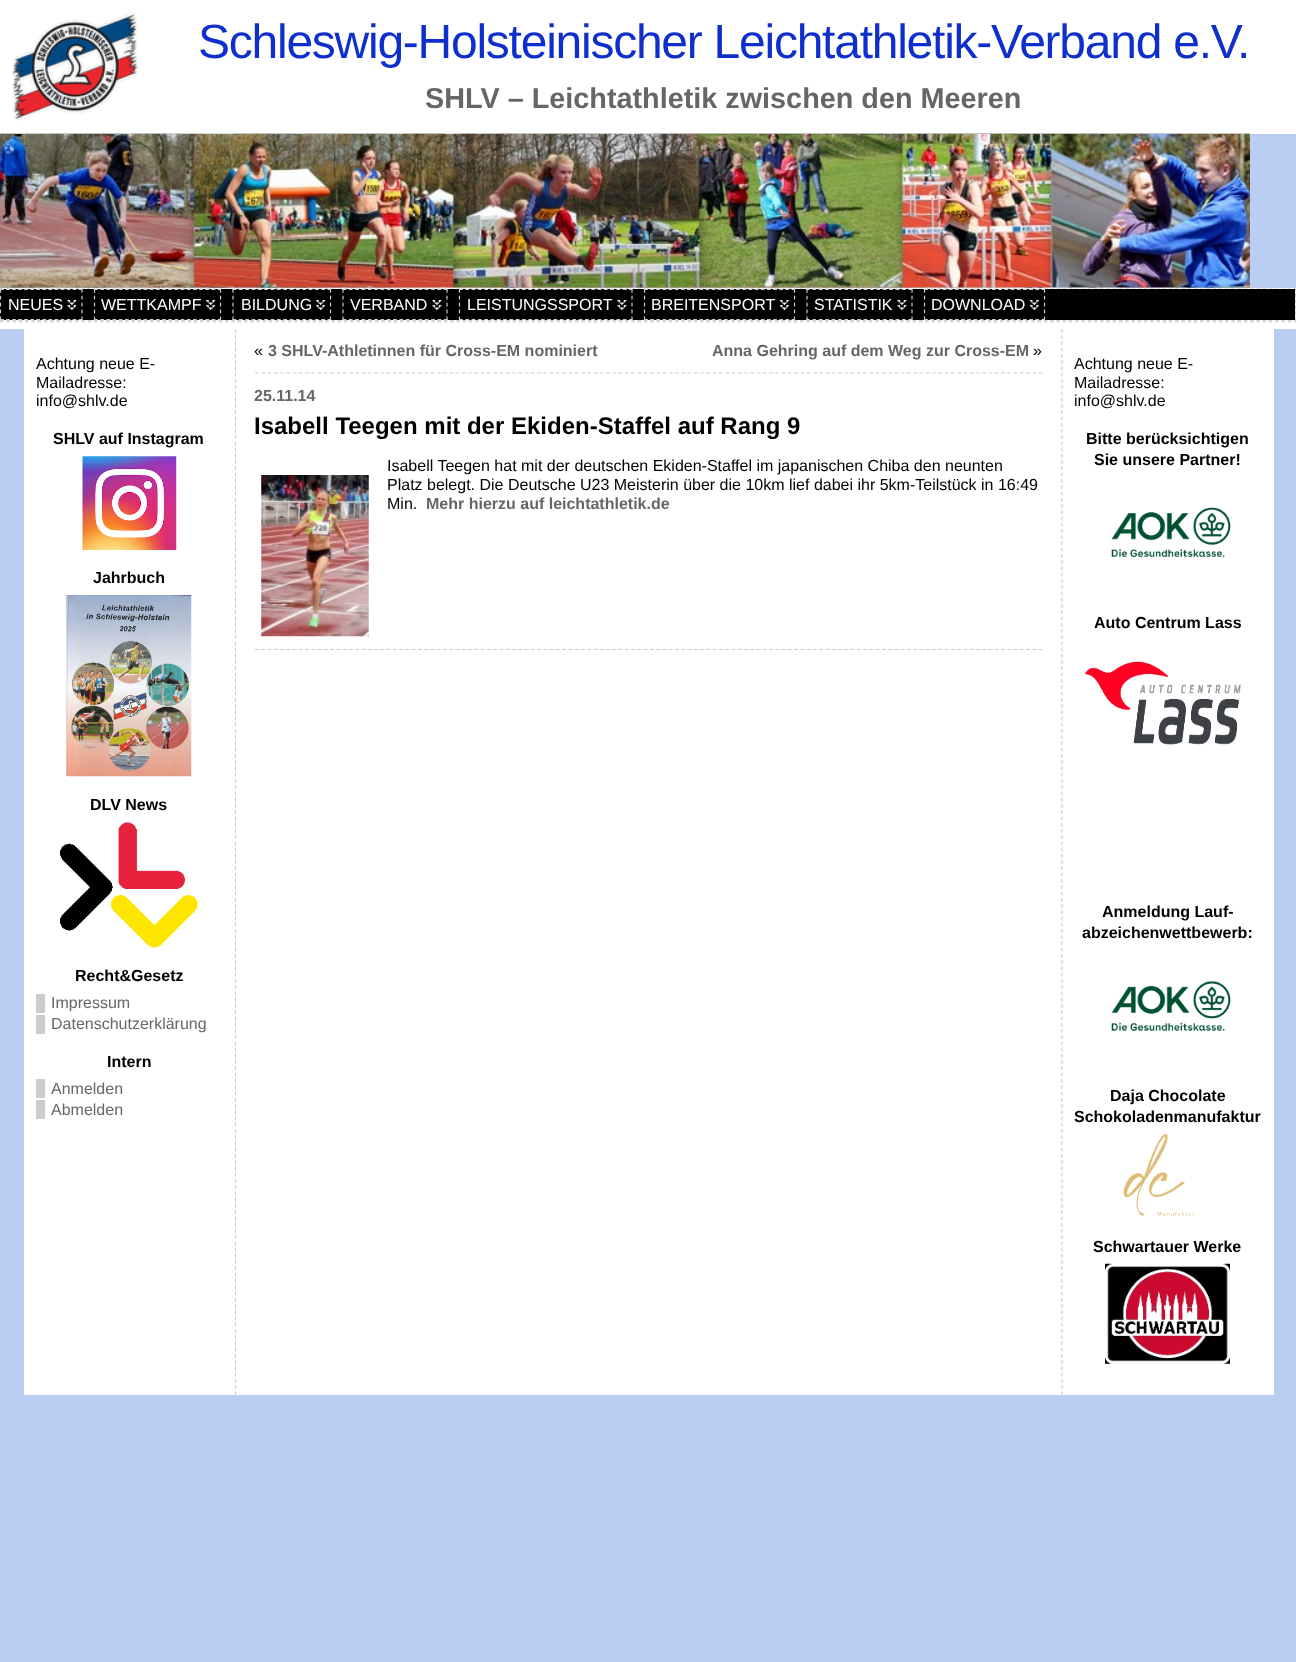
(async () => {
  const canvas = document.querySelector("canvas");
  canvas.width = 1296;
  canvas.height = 1662;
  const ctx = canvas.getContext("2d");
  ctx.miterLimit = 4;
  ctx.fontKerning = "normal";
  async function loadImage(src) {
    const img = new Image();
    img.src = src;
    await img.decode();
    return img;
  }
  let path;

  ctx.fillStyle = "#bacdf2";
  ctx.fillRect(0, 0, 1296, 1662);
  ctx.fillStyle = "#ffffff";
  ctx.fillRect(0, 0, 1296, 134);
  ctx.drawImage(await loadImage("img/1.png"), 12, 12, 126, 109);
  ctx.fillRect(1, 288, 1295, 33);
  path = new Path2D("M0 288H1296");
  ctx.strokeStyle = "#cccccc";
  ctx.lineWidth = 1.2;
  ctx.setLineDash([3.75, 2.5]);
  ctx.stroke(path);
  path = new Path2D("M1295.5 287.5V321");
  ctx.setLineDash([3.75, 2.25]);
  ctx.stroke(path);
  path = new Path2D("M0 320.5H1296");
  ctx.setLineDash([3.75, 2.5]);
  ctx.stroke(path);
  path = new Path2D("M.5 287.5V321");
  ctx.setLineDash([3.75, 2.25]);
  ctx.stroke(path);
  ctx.drawImage(await loadImage("img/2.png"), 0, 133, 1250, 155);
  ctx.drawImage(await loadImage("img/3.png"), 0, 133, 1250, 155);
  ctx.fillStyle = "#000000";
  ctx.fillRect(0, 289, 1295, 31);
  ctx.drawImage(await loadImage("img/4.png"), 67, 300, 10, 10);
  path = new Path2D("M0 289.5H82.5");
  ctx.setLineDash([3.75, 2.31]);
  ctx.stroke(path);
  path = new Path2D("M82 289V320");
  ctx.setLineDash([3.75, 3.12]);
  ctx.stroke(path);
  path = new Path2D("M0 319.5H82.5");
  ctx.setLineDash([3.75, 2.31]);
  ctx.stroke(path);
  path = new Path2D("M.5 289V320");
  ctx.setLineDash([3.75, 3.12]);
  ctx.stroke(path);
  ctx.drawImage(await loadImage("img/5.png"), 206, 300, 10, 10);
  path = new Path2D("M94 289.5H221");
  ctx.setLineDash([3.75, 2.44]);
  ctx.stroke(path);
  path = new Path2D("M220.5 289V320");
  ctx.setLineDash([3.75, 3.12]);
  ctx.stroke(path);
  path = new Path2D("M94 319.5H221");
  ctx.setLineDash([3.75, 2.44]);
  ctx.stroke(path);
  path = new Path2D("M94.5 289V320");
  ctx.setLineDash([3.75, 3.12]);
  ctx.stroke(path);
  ctx.drawImage(await loadImage("img/5.png"), 316, 300, 10, 10);
  path = new Path2D("M232.5 289.5H331");
  ctx.setLineDash([3.75, 2.59]);
  ctx.stroke(path);
  path = new Path2D("M330.5 289V320");
  ctx.setLineDash([3.75, 3.12]);
  ctx.stroke(path);
  path = new Path2D("M232.5 319.5H331");
  ctx.setLineDash([3.75, 2.59]);
  ctx.stroke(path);
  path = new Path2D("M233 289V320");
  ctx.setLineDash([3.75, 3.12]);
  ctx.stroke(path);
  ctx.drawImage(await loadImage("img/6.png"), 432, 300, 10, 10);
  path = new Path2D("M342.5 289.5H447.5");
  ctx.setLineDash([3.75, 2.58]);
  ctx.stroke(path);
  path = new Path2D("M447 289V320");
  ctx.setLineDash([3.75, 3.12]);
  ctx.stroke(path);
  path = new Path2D("M342.5 319.5H447.5");
  ctx.setLineDash([3.75, 2.58]);
  ctx.stroke(path);
  path = new Path2D("M343 289V320");
  ctx.setLineDash([3.75, 3.12]);
  ctx.stroke(path);
  ctx.drawImage(await loadImage("img/6.png"), 617, 300, 10, 10);
  path = new Path2D("M459 289.5H632.5");
  ctx.setLineDash([3.75, 2.55]);
  ctx.stroke(path);
  path = new Path2D("M632 289V320");
  ctx.setLineDash([3.75, 3.12]);
  ctx.stroke(path);
  path = new Path2D("M459 319.5H632.5");
  ctx.setLineDash([3.75, 2.55]);
  ctx.stroke(path);
  path = new Path2D("M459.5 289V320");
  ctx.setLineDash([3.75, 3.12]);
  ctx.stroke(path);
  ctx.drawImage(await loadImage("img/7.png"), 780, 300, 9, 10);
  path = new Path2D("M644 289.5H795");
  ctx.setLineDash([3.75, 2.4]);
  ctx.stroke(path);
  path = new Path2D("M794.5 289V320");
  ctx.setLineDash([3.75, 3.12]);
  ctx.stroke(path);
  path = new Path2D("M644 319.5H795");
  ctx.setLineDash([3.75, 2.4]);
  ctx.stroke(path);
  path = new Path2D("M644.5 289V320");
  ctx.setLineDash([3.75, 3.12]);
  ctx.stroke(path);
  ctx.drawImage(await loadImage("img/6.png"), 897, 300, 10, 10);
  path = new Path2D("M806 289.5H912.5");
  ctx.setLineDash([3.75, 2.65]);
  ctx.stroke(path);
  path = new Path2D("M912 289V320");
  ctx.setLineDash([3.75, 3.12]);
  ctx.stroke(path);
  path = new Path2D("M806 319.5H912.5");
  ctx.setLineDash([3.75, 2.65]);
  ctx.stroke(path);
  path = new Path2D("M807 289V320");
  ctx.setLineDash([3.75, 3.12]);
  ctx.stroke(path);
  ctx.drawImage(await loadImage("img/8.png"), 1030, 300, 9, 10);
  path = new Path2D("M924 289.5H1045");
  ctx.setLineDash([3.75, 2.44]);
  ctx.stroke(path);
  path = new Path2D("M1044.5 289V320");
  ctx.setLineDash([3.75, 3.12]);
  ctx.stroke(path);
  path = new Path2D("M924 319.5H1045");
  ctx.setLineDash([3.75, 2.44]);
  ctx.stroke(path);
  path = new Path2D("M924.5 289V320");
  ctx.setLineDash([3.75, 3.12]);
  ctx.stroke(path);
  ctx.fillStyle = "#ffffff";
  ctx.fillRect(0, 321, 1296, 8);
  path = new Path2D("M0 322H1296");
  ctx.setLineDash([3.75, 2.5]);
  ctx.stroke(path);
  ctx.fillRect(24, 329, 212, 1066);
  path = new Path2D("M235.5 329V1395");
  ctx.stroke(path);
  ctx.drawImage(await loadImage("img/9.png"), 82, 456, 95, 94);
  ctx.drawImage(await loadImage("img/10.png"), 66, 595, 126, 182);
  ctx.drawImage(await loadImage("img/11.png"), 60, 822, 138, 126);
  for (const [x, y, w, h, color] of [
    [36, 994, 9, 19, "#cccccc"],
    [36, 1015, 9, 19, "#cccccc"],
    [36, 1079, 9, 19, "#cccccc"],
    [36, 1100, 9, 19, "#cccccc"],
    [236, 329, 1038, 1066, "#ffffff"],
  ]) {
    ctx.fillStyle = color;
    ctx.fillRect(x, y, w, h);
  }
  path = new Path2D("M255 373H1042.5");
  ctx.setLineDash([3.75, 2.52]);
  ctx.stroke(path);
  ctx.drawImage(await loadImage("img/12.png"), 261, 475, 108, 162);
  path = new Path2D("M255 649.5H1042.5");
  ctx.stroke(path);
  path = new Path2D("M1062 329V1395");
  ctx.setLineDash([3.75, 2.5]);
  ctx.stroke(path);
  ctx.drawImage(await loadImage("img/13.png"), 1110, 507, 121, 51);
  ctx.drawImage(await loadImage("img/14.png"), 1085, 661, 156, 84);
  ctx.drawImage(await loadImage("img/15.png"), 1110, 981, 121, 51);
  ctx.drawImage(await loadImage("img/16.png"), 1123, 1133, 72, 83);
  ctx.drawImage(await loadImage("img/17.png"), 1105, 1263, 125, 101);
  ctx.letterSpacing = "-1.25px";
  ctx.font = "48px Liberation Sans";
  ctx.fillStyle = "#0f2fcd";
  ctx.fillText("Schleswig-Holsteinischer Leichtathletik-Verband e.V.", 198, 58);
  ctx.letterSpacing = "0px";
  ctx.font = "bold 28.8px Liberation Sans";
  ctx.fillStyle = "#666666";
  ctx.fillText("SHLV – Leichtathletik zwischen den Meeren", 425, 108);
  ctx.font = "16px Liberation Sans";
  ctx.fillStyle = "#ffffff";
  for (const [text, x, y] of [
    ["NEUES", 8, 310],
    ["WETTKAMPF", 101, 310],
    ["BILDUNG", 241, 310],
    ["VERBAND", 350, 310],
    ["LEISTUNGSSPORT", 467, 310],
    ["BREITENSPORT", 651, 310],
    ["STATISTIK", 814, 310],
    ["DOWNLOAD", 931, 310],
  ]) {
    ctx.fillText(text, x, y);
  }
  ctx.fillStyle = "#000000";
  for (const [text, x, y] of [
    ["Achtung neue E-", 36, 369],
    ["Mailadresse:", 36, 388],
    ["info@shlv.de", 36, 406],
  ]) {
    ctx.fillText(text, x, y);
  }
  ctx.font = "bold 16px Liberation Sans";
  for (const [text, x, y] of [
    ["SHLV auf Instagram", 53, 444],
    ["Jahrbuch", 93, 583],
    ["DLV News", 90, 810],
    ["Recht&Gesetz", 75, 981],
  ]) {
    ctx.fillText(text, x, y);
  }
  ctx.font = "16px Liberation Sans";
  ctx.fillStyle = "#666666";
  ctx.fillText("Impressum", 51, 1008);
  ctx.fillText("Datenschutzerklärung", 51, 1029);
  ctx.font = "bold 16px Liberation Sans";
  ctx.fillStyle = "#000000";
  ctx.fillText("Intern", 107, 1067);
  ctx.font = "16px Liberation Sans";
  ctx.fillStyle = "#666666";
  ctx.fillText("Anmelden", 51, 1094);
  ctx.fillText("Abmelden", 51, 1115);
  ctx.fillStyle = "#000000";
  ctx.fillText("«", 254, 356);
  ctx.font = "bold 16px Liberation Sans";
  ctx.fillStyle = "#666666";
  ctx.fillText("3 SHLV-Athletinnen für Cross-EM nominiert", 268, 356);
  ctx.fillText("Anna Gehring auf dem Weg zur Cross-EM", 712, 356);
  ctx.font = "16px Liberation Sans";
  ctx.fillStyle = "#000000";
  ctx.fillText("»", 1033, 356);
  ctx.font = "bold 16px Liberation Sans";
  ctx.fillStyle = "#666666";
  ctx.fillText("25.11.14", 254, 401);
  ctx.font = "bold 24px Liberation Sans";
  ctx.fillStyle = "#000000";
  ctx.fillText("Isabell Teegen mit der Ekiden-Staffel auf Rang 9", 254, 434);
  ctx.font = "16px Liberation Sans";
  for (const [text, x, y] of [
    ["Isabell Teegen hat mit der deutschen Ekiden-Staffel im japanischen Chiba den neunten", 387, 471],
    ["Platz belegt. Die Deutsche U23 Meisterin über die 10km lief dabei ihr 5km-Teilstück in 16:49", 387, 490],
    ["Min.", 387, 509],
  ]) {
    ctx.fillText(text, x, y);
  }
  ctx.font = "bold 16px Liberation Sans";
  ctx.fillStyle = "#666666";
  ctx.fillText("Mehr hierzu auf leichtathletik.de", 426, 509);
  ctx.font = "16px Liberation Sans";
  ctx.fillStyle = "#000000";
  for (const [text, x, y] of [
    ["Achtung neue E-", 1074, 369],
    ["Mailadresse:", 1074, 388],
    ["info@shlv.de", 1074, 406],
  ]) {
    ctx.fillText(text, x, y);
  }
  ctx.font = "bold 16px Liberation Sans";
  for (const [text, x, y] of [
    ["Bitte berücksichtigen", 1086, 444],
    ["Sie unsere Partner!", 1094, 465],
    ["Auto Centrum Lass", 1094, 628],
    ["Anmeldung Lauf-", 1102, 917],
    ["abzeichenwettbewerb:", 1082, 938],
    ["Daja Chocolate", 1110, 1101],
    ["Schokoladenmanufaktur", 1074, 1122],
    ["Schwartauer Werke", 1093, 1252],
  ]) {
    ctx.fillText(text, x, y);
  }
})();
